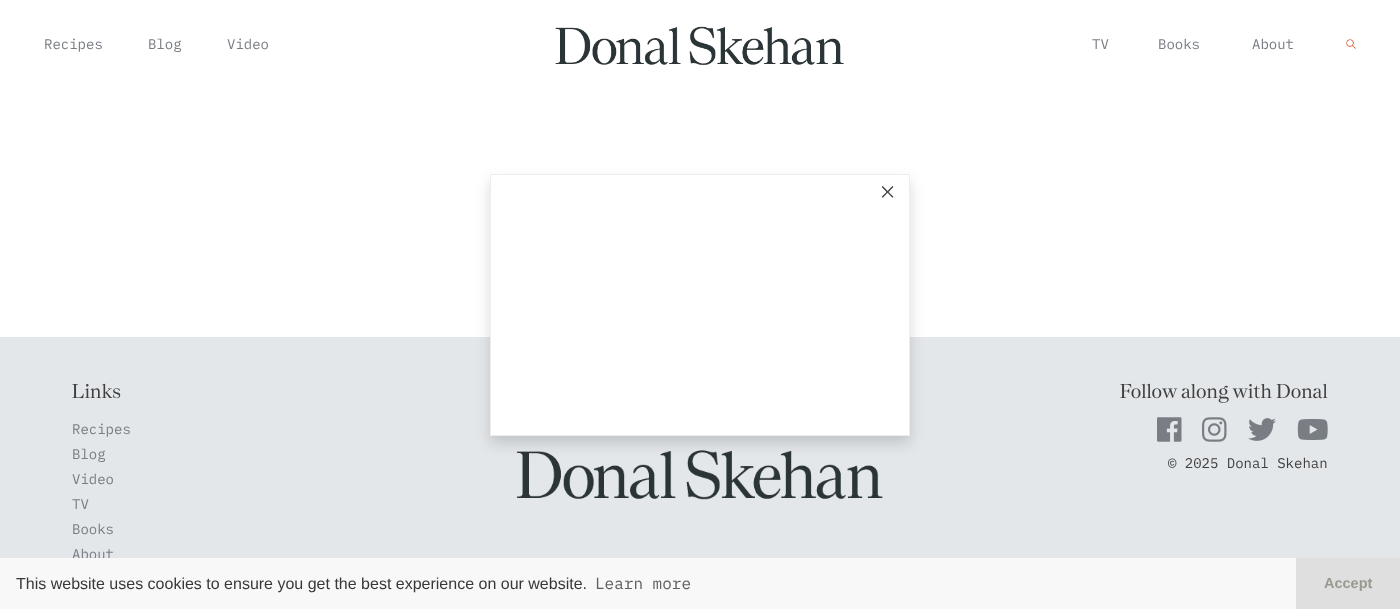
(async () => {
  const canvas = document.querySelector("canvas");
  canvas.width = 1400;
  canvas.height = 609;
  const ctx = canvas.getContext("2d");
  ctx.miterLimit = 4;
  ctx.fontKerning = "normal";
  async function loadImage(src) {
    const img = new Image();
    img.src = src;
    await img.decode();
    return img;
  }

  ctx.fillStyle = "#ffffff";
  ctx.fillRect(0, 0, 1400, 609);
  ctx.drawImage(await loadImage("img/1.png"), 555, 26, 289, 39);
  ctx.drawImage(await loadImage("img/2.png"), 1346, 39, 10, 10);
  ctx.fillStyle = "#e4e7ea";
  ctx.fillRect(0, 337, 1400, 221);
  ctx.drawImage(await loadImage("img/7.png"), 516, 450, 367, 50);
  ctx.fillStyle = "rgba(0, 0, 0, 0.15)";
  ctx.filter = "blur(7px)";
  ctx.beginPath();
  ctx.rect(490, 181, 420, 262);
  ctx.fill();
  ctx.filter = "none";
  ctx.fillStyle = "#ffffff";
  ctx.beginPath();
  ctx.rect(490.5, 174.5, 419, 261);
  ctx.fill();
  ctx.strokeStyle = "#eeeeee";
  ctx.stroke();
  ctx.drawImage(await loadImage("img/3.png"), 1157, 417, 25, 25);
  ctx.drawImage(await loadImage("img/4.png"), 1202, 417, 25, 25);
  ctx.drawImage(await loadImage("img/5.png"), 1248, 418, 28, 23);
  ctx.drawImage(await loadImage("img/6.png"), 1297, 419, 31, 21);
  ctx.fillStyle = "#dfdfdf";
  ctx.fillRect(1296, 558, 104, 51);
  ctx.font = "14px IBM Plex Mono";
  ctx.fillStyle = "#797d84";
  for (const [text, x, y] of [
    ["Recipes", 44, 49],
    ["Blog", 148, 49],
    ["Video", 227, 49],
    ["TV", 1092, 49],
    ["Books", 1158, 49],
    ["About", 1252, 49],
  ]) {
    ctx.fillText(text, x, y);
  }
  ctx.font = "32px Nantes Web";
  ctx.fillStyle = "#3f3f3f";
  ctx.fillText("×", 880, 201);
  ctx.font = "20px Nantes Web";
  ctx.fillText("Links", 72, 398);
  ctx.font = "14px IBM Plex Mono";
  ctx.fillStyle = "#797d84";
  for (const [text, x, y] of [
    ["Recipes", 72, 434],
    ["Blog", 72, 459],
    ["Video", 72, 484],
    ["TV", 72, 509],
    ["Books", 72, 534],
    ["About", 72, 559],
  ]) {
    ctx.fillText(text, x, y);
  }
  ctx.font = "20px Nantes Web";
  ctx.fillStyle = "#3f3f3f";
  ctx.fillText("Follow along with Donal", 1120, 398);
  ctx.font = "14px IBM Plex Mono";
  ctx.fillText("© 2025 Donal Skehan", 1168, 468);
  ctx.fillStyle = "#f8f8f8";
  ctx.fillRect(0, 558, 1296, 51);
  ctx.font = "16px Liberation Sans";
  ctx.fillStyle = "#383839";
  ctx.fillText("This website uses cookies to ensure you get the best experience on our website.", 16, 589);
  ctx.font = "16px IBM Plex Mono";
  ctx.fillStyle = "#5e5e5f";
  ctx.fillText("Learn more", 595, 589);
  ctx.font = "bold 14.5px Liberation Sans";
  ctx.fillStyle = "#9a998f";
  ctx.fillText("Accept", 1324, 588);
})();
